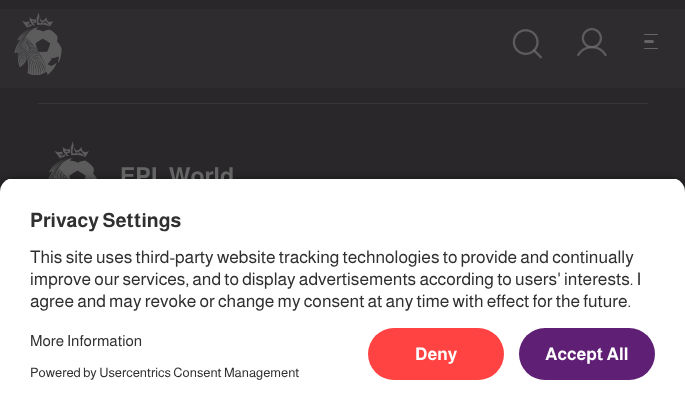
(async () => {
  const canvas = document.querySelector("canvas");
  canvas.width = 685;
  canvas.height = 410;
  const ctx = canvas.getContext("2d");
  ctx.miterLimit = 4;
  ctx.fontKerning = "normal";
  async function loadImage(src) {
    const img = new Image();
    img.src = src;
    await img.decode();
    return img;
  }

  ctx.fillStyle = "#292729";
  ctx.fillRect(0, 0, 685, 410);
  ctx.fillStyle = "#2e2c2f";
  ctx.fillRect(0, 9, 685, 79);
  ctx.drawImage(await loadImage("img/1.png"), 14, 13, 48, 62);
  ctx.drawImage(await loadImage("img/2.png"), 512, 29, 30, 30);
  ctx.drawImage(await loadImage("img/3.png"), 577, 28, 30, 28);
  ctx.fillStyle = "#656565";
  ctx.beginPath();
  ctx.roundRect(644, 34, 14, 1, 0.5);
  ctx.fill();
  ctx.beginPath();
  ctx.roundRect(644, 40, 10, 3, 1.5);
  ctx.fill();
  ctx.beginPath();
  ctx.roundRect(644, 48, 14, 1, 0.5);
  ctx.fill();
  ctx.fillStyle = "#373638";
  ctx.fillRect(38, 103, 610, 1);
  ctx.drawImage(await loadImage("img/4.png"), 48, 141, 49, 38);
  ctx.fillStyle = "rgba(0, 0, 0, 0.8)";
  ctx.filter = "blur(4.5px)";
  ctx.beginPath();
  ctx.roundRect(0, 181, 685, 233, 14);
  ctx.fill();
  ctx.filter = "none";
  ctx.fillStyle = "#ffffff";
  ctx.fillRect(0, 318, 685, 92);
  ctx.fillStyle = "#ff4343";
  ctx.beginPath();
  ctx.roundRect(368, 328, 136, 52, 26);
  ctx.fill();
  ctx.fillStyle = "#5f1f74";
  ctx.beginPath();
  ctx.roundRect(519, 328, 136, 52, 26);
  ctx.fill();
  ctx.font = "bold 23.5px Almarai";
  ctx.fillStyle = "#646465";
  ctx.fillText("EPL World", 120, 184);
  ctx.save();
  ctx.beginPath();
  ctx.roundRect(0, 178, 685, 140, [14, 14, 0, 0]);
  ctx.clip();
  ctx.fillStyle = "#ffffff";
  ctx.fillRect(0, 179, 685, 139);
  ctx.restore();
  ctx.font = "bold 19.75px Almarai";
  ctx.fillStyle = "#303030";
  ctx.fillText("Privacy Settings", 30, 227);
  ctx.font = "17.5px Almarai";
  for (const [text, x, y] of [
    ["This site uses third-party website tracking technologies to provide and continually", 30, 263],
    ["improve our services, and to display advertisements according to users' interests. I", 30, 285],
    ["agree and may revoke or change my consent at any time with effect for the future.", 30, 307],
  ]) {
    ctx.fillText(text, x, y);
  }
  ctx.font = "15.25px Almarai";
  ctx.fillText("More Information", 30, 346);
  ctx.font = "13.1px Almarai";
  ctx.fillText("Powered by Usercentrics Consent Management", 30, 377);
  ctx.font = "bold 17.5px Almarai";
  ctx.fillStyle = "#ffffff";
  ctx.fillText("Deny", 415, 360);
  ctx.fillText("Accept All", 545, 360);
})();
